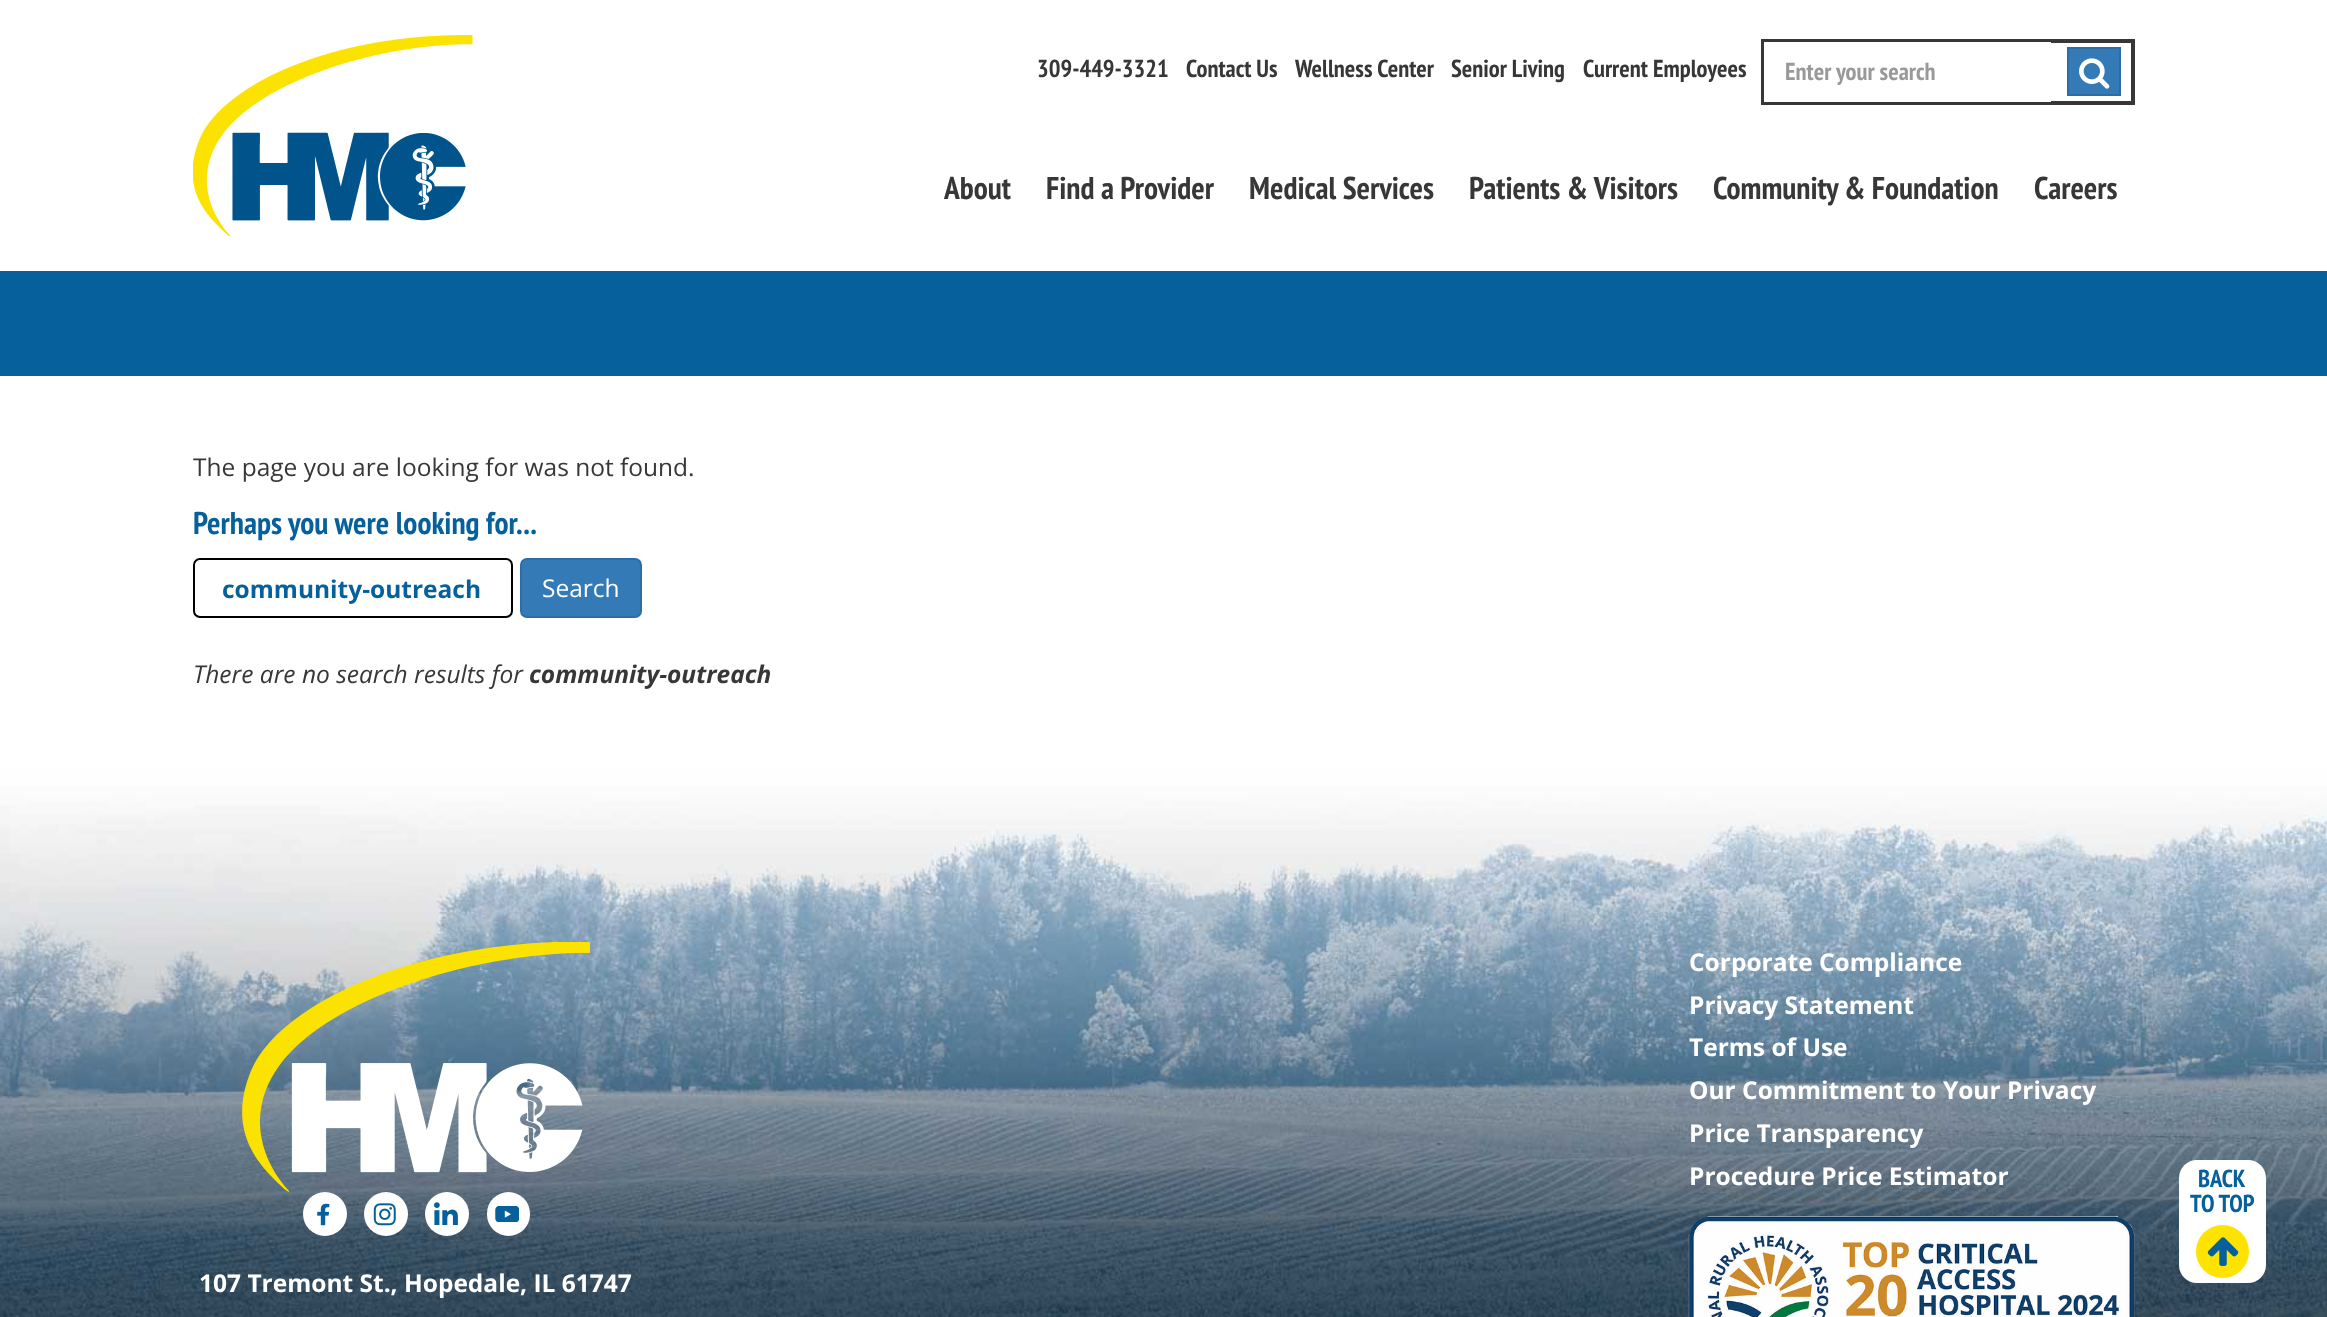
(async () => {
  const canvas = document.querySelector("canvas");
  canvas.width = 2327;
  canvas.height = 1317;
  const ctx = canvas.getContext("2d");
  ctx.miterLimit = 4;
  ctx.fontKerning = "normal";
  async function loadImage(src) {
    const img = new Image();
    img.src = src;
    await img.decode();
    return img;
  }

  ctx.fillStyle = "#ffffff";
  ctx.fillRect(0, 0, 2327, 1317);
  ctx.beginPath();
  ctx.roundRect(194, 559, 318, 58, 6);
  ctx.strokeStyle = "#000000";
  ctx.lineWidth = 2;
  ctx.stroke();
  ctx.fillStyle = "#337ab7";
  ctx.beginPath();
  ctx.roundRect(521, 559, 120, 58, 6);
  ctx.fill();
  ctx.strokeStyle = "#2e6da4";
  ctx.stroke();
  ctx.drawImage(await loadImage("img/1.png"), 193, 35, 280, 201);
  ctx.strokeStyle = "#373737";
  ctx.lineWidth = 4;
  ctx.strokeRect(1763, 41, 370, 62);
  ctx.fillStyle = "#ffffff";
  ctx.fillRect(1764, 42, 287, 60);
  ctx.fillStyle = "#337ab7";
  ctx.beginPath();
  ctx.rect(2068, 48, 52, 47);
  ctx.fill();
  ctx.strokeStyle = "#2e6da4";
  ctx.lineWidth = 2;
  ctx.stroke();
  ctx.drawImage(await loadImage("img/2.png"), 2079, 58, 31, 31);
  ctx.fillStyle = "#06609c";
  ctx.fillRect(0, 271, 2327, 105);
  ctx.drawImage(await loadImage("img/4.png"), 0, 767, 2327, 550);
  ctx.fillStyle = "#ffffff";
  ctx.beginPath();
  ctx.roundRect(2179, 1160, 87, 123, 18);
  ctx.fill();
  ctx.fillStyle = "#fee300";
  ctx.beginPath();
  ctx.arc(2222.5, 1251.5, 26.5, 0, Math.PI * 2);
  ctx.fill();
  ctx.drawImage(await loadImage("img/3.png"), 2207, 1237, 32, 29);
  ctx.drawImage(await loadImage("img/5.png"), 1688, 1216, 447, 101);
  ctx.drawImage(await loadImage("img/6.png"), 242, 942, 348, 250);
  ctx.fillStyle = "#ffffff";
  ctx.beginPath();
  ctx.arc(325, 1214, 22, 0, Math.PI * 2);
  ctx.fill();
  ctx.drawImage(await loadImage("img/7.png"), 317, 1203, 13, 23);
  ctx.beginPath();
  ctx.arc(386, 1214, 22, 0, Math.PI * 2);
  ctx.fill();
  ctx.drawImage(await loadImage("img/8.png"), 373, 1203, 23, 23);
  ctx.beginPath();
  ctx.arc(447, 1214, 22, 0, Math.PI * 2);
  ctx.fill();
  ctx.drawImage(await loadImage("img/9.png"), 434, 1202, 24, 23);
  ctx.beginPath();
  ctx.roundRect(487, 1192, 43, 44, 21.5);
  ctx.fill();
  ctx.drawImage(await loadImage("img/10.png"), 495, 1206, 24, 16);
  ctx.font = "24.5px Open Sans";
  ctx.fillStyle = "#373737";
  ctx.fillText("The page you are looking for was not found.", 193, 476);
  ctx.font = "bold 31.5px PT Sans Narrow";
  ctx.fillStyle = "#06609c";
  ctx.fillText("Perhaps you were looking for...", 193, 534);
  ctx.font = "bold 24.5px Open Sans";
  ctx.fillText("community-outreach", 222, 598);
  ctx.font = "24.5px Open Sans";
  ctx.fillStyle = "#ffffff";
  ctx.fillText("Search", 542, 597);
  ctx.font = "italic 24.5px Open Sans";
  ctx.fillStyle = "#373737";
  ctx.fillText("There are no search results for", 193, 683);
  ctx.font = "italic bold 24.5px Open Sans";
  ctx.fillText("community-outreach", 529, 683);
  ctx.font = "bold 24.5px PT Sans Narrow";
  for (const [text, x, y] of [
    ["309-449-3321", 1037, 77],
    ["Contact Us", 1186, 77],
    ["Wellness Center", 1295, 77],
    ["Senior Living", 1451, 77],
    ["Current Employees", 1583, 77],
  ]) {
    ctx.fillText(text, x, y);
  }
  ctx.fillStyle = "#999999";
  ctx.fillText("Enter your search", 1785, 80);
  ctx.font = "bold 31.5px PT Sans Narrow";
  ctx.fillStyle = "#373737";
  for (const [text, x, y] of [
    ["About", 944, 199],
    ["Find a Provider", 1046, 199],
    ["Medical Services", 1249, 199],
    ["Patients & Visitors", 1469, 199],
    ["Community & Foundation", 1713, 199],
    ["Careers", 2034, 199],
  ]) {
    ctx.fillText(text, x, y);
  }
  ctx.font = "bold 24.5px PT Sans Narrow";
  ctx.fillStyle = "#06609c";
  ctx.fillText("BACK", 2198, 1187);
  ctx.fillText("TO TOP", 2190, 1212);
  ctx.font = "bold 24.5px Open Sans";
  ctx.fillStyle = "#ffffff";
  for (const [text, x, y] of [
    ["Corporate Compliance", 1689, 971],
    ["Privacy Statement", 1689, 1014],
    ["Terms of Use", 1689, 1056],
    ["Our Commitment to Your Privacy", 1689, 1099],
    ["Price Transparency", 1689, 1142],
    ["Procedure Price Estimator", 1689, 1185],
    ["107 Tremont St., Hopedale, IL 61747", 199, 1292],
  ]) {
    ctx.fillText(text, x, y);
  }
})();
